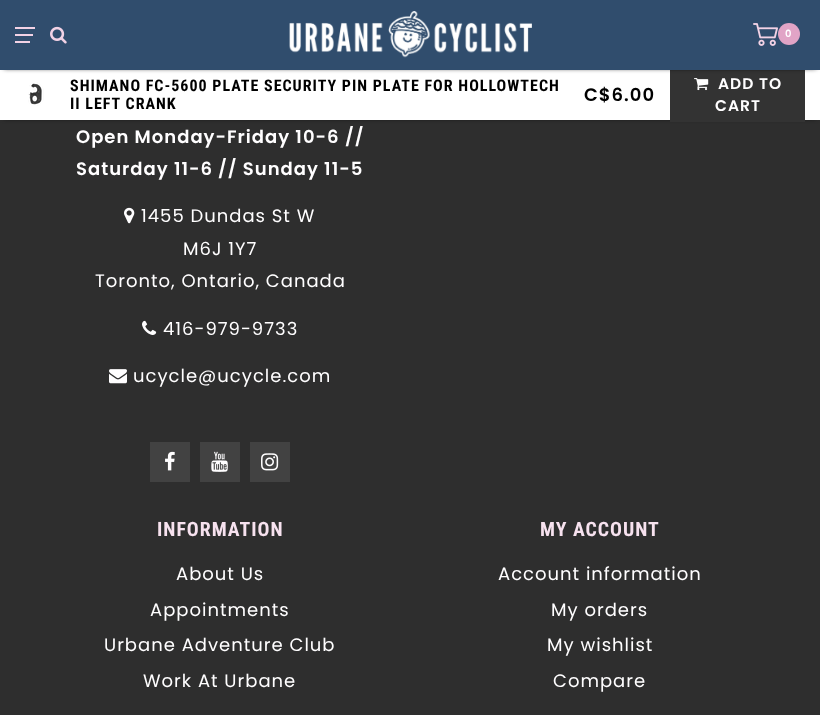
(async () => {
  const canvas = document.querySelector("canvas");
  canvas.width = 820;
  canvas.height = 715;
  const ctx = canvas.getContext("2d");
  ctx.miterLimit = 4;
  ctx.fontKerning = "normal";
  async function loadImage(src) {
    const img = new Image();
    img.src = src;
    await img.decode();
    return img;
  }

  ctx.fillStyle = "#2e2e2e";
  ctx.fillRect(0, 0, 820, 715);
  ctx.fillStyle = "#000000";
  ctx.filter = "blur(2.5px)";
  ctx.beginPath();
  ctx.rect(4, 76, 812, 42);
  ctx.fill();
  ctx.filter = "none";
  ctx.fillStyle = "#ffffff";
  ctx.fillRect(0, 70, 820, 50);
  ctx.fillStyle = "#333333";
  ctx.fillRect(670, 70, 135, 52);
  ctx.fillStyle = "#000000";
  ctx.filter = "blur(2.5px)";
  ctx.beginPath();
  ctx.rect(4, 6, 812, 62);
  ctx.fill();
  ctx.filter = "none";
  for (const [x, y, w, h, color] of [
    [0, 0, 820, 70, "#304d6d"],
    [15, 27, 20, 2, "#f2d2e5"],
    [15, 34, 18, 2, "#f2d2e5"],
    [15, 41, 15, 2, "#f2d2e5"],
  ]) {
    ctx.fillStyle = color;
    ctx.fillRect(x, y, w, h);
  }
  ctx.drawImage(await loadImage("img/1.png"), 50, 26, 17, 18);
  ctx.drawImage(await loadImage("img/2.png"), 289, 11, 243, 47);
  ctx.drawImage(await loadImage("img/3.png"), 753, 23, 25, 23);
  ctx.fillStyle = "#e1a4c6";
  ctx.beginPath();
  ctx.arc(789, 34, 11, 0, Math.PI * 2);
  ctx.fill();
  ctx.drawImage(await loadImage("img/4.png"), 28, 82, 16, 24);
  ctx.drawImage(await loadImage("img/5.png"), 694, 78, 15, 13);
  ctx.drawImage(await loadImage("img/6.png"), 124, 207, 11, 17);
  ctx.drawImage(await loadImage("img/7.png"), 142, 320, 15, 15);
  ctx.drawImage(await loadImage("img/8.png"), 109, 369, 18, 15);
  ctx.fillStyle = "#424242";
  ctx.fillRect(150, 442, 40, 40);
  ctx.drawImage(await loadImage("img/9.png"), 165, 451, 10, 20);
  ctx.fillRect(200, 442, 40, 40);
  ctx.drawImage(await loadImage("img/10.png"), 211, 451, 17, 21);
  ctx.fillRect(250, 442, 40, 40);
  ctx.drawImage(await loadImage("img/11.png"), 261, 453, 18, 18);
  ctx.letterSpacing = "1px";
  ctx.font = "600 10px Poppins";
  ctx.fillStyle = "#fffeff";
  ctx.fillText("0", 785, 37);
  ctx.font = "bold 16px Roboto Condensed";
  ctx.fillStyle = "#000000";
  ctx.fillText("SHIMANO FC-5600 PLATE SECURITY PIN PLATE FOR HOLLOWTECH", 70, 91);
  ctx.fillText("II LEFT CRANK", 70, 109);
  ctx.font = "600 18px Poppins";
  ctx.fillText("C$6.00", 584, 101);
  ctx.font = "600 15.5px Poppins";
  ctx.fillStyle = "#fffeff";
  ctx.fillText("ADD TO", 718, 89);
  ctx.fillText("CART", 715, 111);
  ctx.font = "600 18px Poppins";
  for (const [text, x, y] of [
    ["Open Monday-Friday 10-6", 76, 143],
    ["//", 345, 143],
    ["Saturday 11-6", 76, 175],
    ["// Sunday 11-5", 218, 175],
  ]) {
    ctx.fillText(text, x, y);
  }
  ctx.font = "18px Poppins";
  for (const [text, x, y] of [
    ["1455 Dundas St W", 141, 222],
    ["M6J 1Y7", 183, 255],
    ["Toronto, Ontario, Canada", 95, 287],
    ["416-979-9733", 163, 335],
    ["ucycle@ucycle.com", 133, 382],
  ]) {
    ctx.fillText(text, x, y);
  }
  ctx.font = "bold 19.75px Roboto Condensed";
  ctx.fillStyle = "#f7e2ef";
  ctx.fillText("INFORMATION", 157, 536);
  ctx.font = "18px Poppins";
  ctx.fillStyle = "#fffeff";
  for (const [text, x, y] of [
    ["About Us", 176, 580],
    ["Appointments", 150, 616],
    ["Urbane Adventure Club", 104, 651],
    ["Work At Urbane", 143, 687],
  ]) {
    ctx.fillText(text, x, y);
  }
  ctx.font = "bold 19.75px Roboto Condensed";
  ctx.fillStyle = "#f7e2ef";
  ctx.fillText("MY ACCOUNT", 540, 536);
  ctx.font = "18px Poppins";
  ctx.fillStyle = "#fffeff";
  for (const [text, x, y] of [
    ["Account information", 498, 580],
    ["My orders", 551, 616],
    ["My wishlist", 547, 651],
    ["Compare", 553, 687],
  ]) {
    ctx.fillText(text, x, y);
  }
})();
